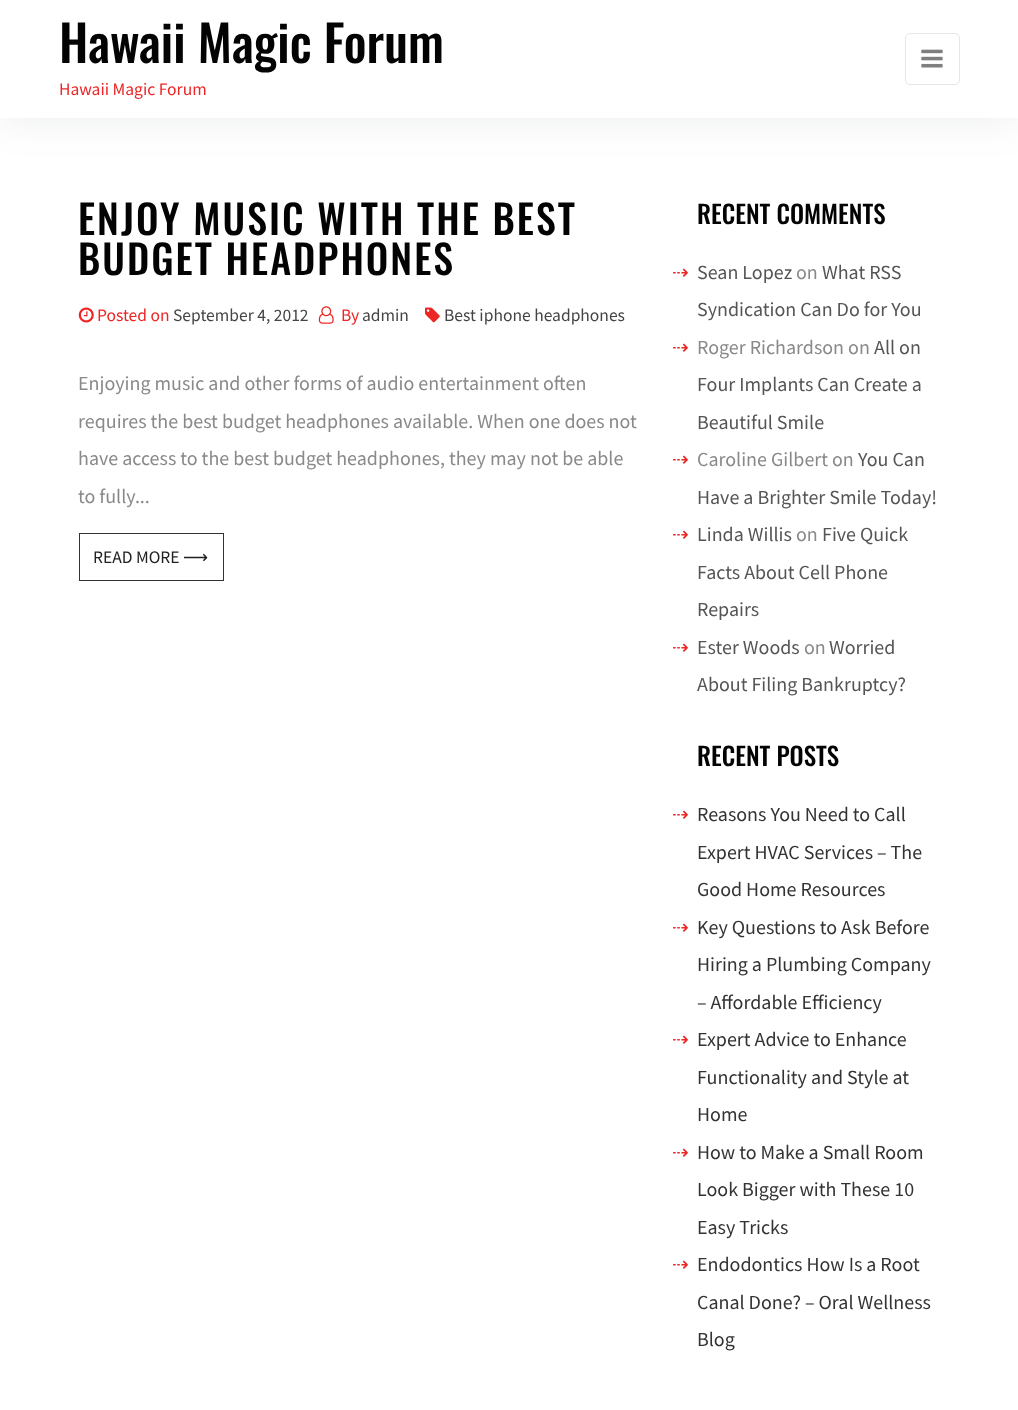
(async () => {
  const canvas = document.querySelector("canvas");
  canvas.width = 1018;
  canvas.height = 1410;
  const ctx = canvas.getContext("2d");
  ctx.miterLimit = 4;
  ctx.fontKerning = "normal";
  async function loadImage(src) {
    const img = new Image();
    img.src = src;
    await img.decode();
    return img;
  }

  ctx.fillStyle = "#ffffff";
  ctx.fillRect(0, 0, 1018, 1410);
  ctx.fillStyle = "rgba(63, 66, 87, 0.1)";
  ctx.filter = "blur(21px)";
  ctx.beginPath();
  ctx.rect(0, 0, 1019, 118);
  ctx.fill();
  ctx.filter = "none";
  ctx.fillStyle = "#ffffff";
  ctx.fillRect(0, 0, 1018, 118);
  ctx.beginPath();
  ctx.roundRect(905.5, 33.5, 54, 51, 4.5);
  ctx.strokeStyle = "#e6e6e6";
  ctx.stroke();
  ctx.drawImage(await loadImage("img/1.png"), 921, 49, 22, 19);
  ctx.drawImage(await loadImage("img/2.png"), 78, 307, 16, 16);
  ctx.drawImage(await loadImage("img/3.png"), 318, 306, 16, 18);
  ctx.drawImage(await loadImage("img/4.png"), 425, 307, 15, 16);
  ctx.strokeStyle = "#333333";
  ctx.strokeRect(79.5, 533.5, 144, 47);
  ctx.font = "500 50px Oswald";
  ctx.fillStyle = "#030303";
  ctx.fillText("Hawaii Magic Forum", 59, 63);
  ctx.font = "17.5px Source Sans Pro";
  ctx.fillStyle = "#ec2525";
  ctx.fillText("Hawaii Magic Forum", 59, 95);
  ctx.letterSpacing = "2px";
  ctx.font = "500 40px Oswald";
  ctx.fillStyle = "#030303";
  ctx.fillText("ENJOY MUSIC WITH THE BEST", 78, 235);
  ctx.fillText("BUDGET HEADPHONES", 78, 275);
  ctx.letterSpacing = "0px";
  ctx.font = "17.5px Source Sans Pro";
  ctx.fillStyle = "#ec2525";
  ctx.fillText("Posted on", 97, 321);
  ctx.fillStyle = "#444444";
  ctx.fillText("September 4, 2012", 173, 321);
  ctx.fillStyle = "#ec2525";
  ctx.fillText("By", 341, 321);
  ctx.fillStyle = "#444444";
  ctx.fillText("admin", 362, 321);
  ctx.fillText("Best iphone headphones", 444, 321);
  ctx.font = "20px Source Sans Pro";
  ctx.fillStyle = "#898989";
  for (const [text, x, y] of [
    ["Enjoying music and other forms of audio entertainment often", 78, 390],
    ["requires the best budget headphones available. When one does not", 78, 428],
    ["have access to the best budget headphones, they may not be able", 78, 465],
    ["to fully...", 78, 503],
  ]) {
    ctx.fillText(text, x, y);
  }
  ctx.font = "17.5px Source Sans Pro";
  ctx.fillStyle = "#202121";
  ctx.fillText("READ MORE", 93, 563);
  ctx.font = "17.5px DejaVu Sans";
  ctx.fillText("⟶", 183, 563);
  ctx.font = "500 25px Oswald";
  ctx.fillStyle = "#030303";
  ctx.fillText("RECENT COMMENTS", 697, 224);
  ctx.font = "20px DejaVu Sans";
  ctx.fillStyle = "#ec2525";
  ctx.fillText("⇢", 672, 279);
  ctx.font = "20px Source Sans Pro";
  ctx.fillStyle = "#555555";
  ctx.fillText("Sean Lopez", 697, 279);
  ctx.fillStyle = "#898989";
  ctx.fillText("on", 796, 279);
  ctx.fillStyle = "#555555";
  ctx.fillText("What RSS", 822, 279);
  ctx.fillText("Syndication Can Do for You", 697, 316);
  ctx.font = "20px DejaVu Sans";
  ctx.fillStyle = "#ec2525";
  ctx.fillText("⇢", 672, 354);
  ctx.font = "20px Source Sans Pro";
  ctx.fillStyle = "#898989";
  ctx.fillText("Roger Richardson on", 697, 354);
  ctx.fillStyle = "#555555";
  for (const [text, x, y] of [
    ["All on", 874, 354],
    ["Four Implants Can Create a", 697, 391],
    ["Beautiful Smile", 697, 429],
  ]) {
    ctx.fillText(text, x, y);
  }
  ctx.font = "20px DejaVu Sans";
  ctx.fillStyle = "#ec2525";
  ctx.fillText("⇢", 672, 466);
  ctx.font = "20px Source Sans Pro";
  ctx.fillStyle = "#898989";
  ctx.fillText("Caroline Gilbert on", 697, 466);
  ctx.fillStyle = "#555555";
  ctx.fillText("You Can", 858, 466);
  ctx.fillText("Have a Brighter Smile Today!", 697, 504);
  ctx.font = "20px DejaVu Sans";
  ctx.fillStyle = "#ec2525";
  ctx.fillText("⇢", 672, 541);
  ctx.font = "20px Source Sans Pro";
  ctx.fillStyle = "#555555";
  ctx.fillText("Linda Willis", 697, 541);
  ctx.fillStyle = "#898989";
  ctx.fillText("on", 796, 541);
  ctx.fillStyle = "#555555";
  for (const [text, x, y] of [
    ["Five Quick", 822, 541],
    ["Facts About Cell Phone", 697, 579],
    ["Repairs", 697, 616],
  ]) {
    ctx.fillText(text, x, y);
  }
  ctx.font = "20px DejaVu Sans";
  ctx.fillStyle = "#ec2525";
  ctx.fillText("⇢", 672, 654);
  ctx.font = "20px Source Sans Pro";
  ctx.fillStyle = "#555555";
  ctx.fillText("Ester Woods", 697, 654);
  ctx.fillStyle = "#898989";
  ctx.fillText("on", 804, 654);
  ctx.fillStyle = "#555555";
  ctx.fillText("Worried", 829, 654);
  ctx.fillText("About Filing Bankruptcy?", 697, 691);
  ctx.font = "500 25px Oswald";
  ctx.fillStyle = "#030303";
  ctx.fillText("RECENT POSTS", 697, 766);
  ctx.font = "20px DejaVu Sans";
  ctx.fillStyle = "#ec2525";
  ctx.fillText("⇢", 672, 821);
  ctx.font = "20px Source Sans Pro";
  ctx.fillStyle = "#333333";
  for (const [text, x, y] of [
    ["Reasons You Need to Call", 697, 821],
    ["Expert HVAC Services – The", 697, 859],
    ["Good Home Resources", 697, 896],
  ]) {
    ctx.fillText(text, x, y);
  }
  ctx.font = "20px DejaVu Sans";
  ctx.fillStyle = "#ec2525";
  ctx.fillText("⇢", 672, 934);
  ctx.font = "20px Source Sans Pro";
  ctx.fillStyle = "#333333";
  for (const [text, x, y] of [
    ["Key Questions to Ask Before", 697, 934],
    ["Hiring a Plumbing Company", 697, 971],
    ["– Affordable Efficiency", 697, 1009],
  ]) {
    ctx.fillText(text, x, y);
  }
  ctx.font = "20px DejaVu Sans";
  ctx.fillStyle = "#ec2525";
  ctx.fillText("⇢", 672, 1046);
  ctx.font = "20px Source Sans Pro";
  ctx.fillStyle = "#333333";
  for (const [text, x, y] of [
    ["Expert Advice to Enhance", 697, 1046],
    ["Functionality and Style at", 697, 1084],
    ["Home", 697, 1121],
  ]) {
    ctx.fillText(text, x, y);
  }
  ctx.font = "20px DejaVu Sans";
  ctx.fillStyle = "#ec2525";
  ctx.fillText("⇢", 672, 1159);
  ctx.font = "20px Source Sans Pro";
  ctx.fillStyle = "#333333";
  for (const [text, x, y] of [
    ["How to Make a Small Room", 697, 1159],
    ["Look Bigger with These 10", 697, 1196],
    ["Easy Tricks", 697, 1234],
  ]) {
    ctx.fillText(text, x, y);
  }
  ctx.font = "20px DejaVu Sans";
  ctx.fillStyle = "#ec2525";
  ctx.fillText("⇢", 672, 1271);
  ctx.font = "20px Source Sans Pro";
  ctx.fillStyle = "#333333";
  for (const [text, x, y] of [
    ["Endodontics How Is a Root", 697, 1271],
    ["Canal Done? – Oral Wellness", 697, 1309],
    ["Blog", 697, 1346],
  ]) {
    ctx.fillText(text, x, y);
  }
})();
